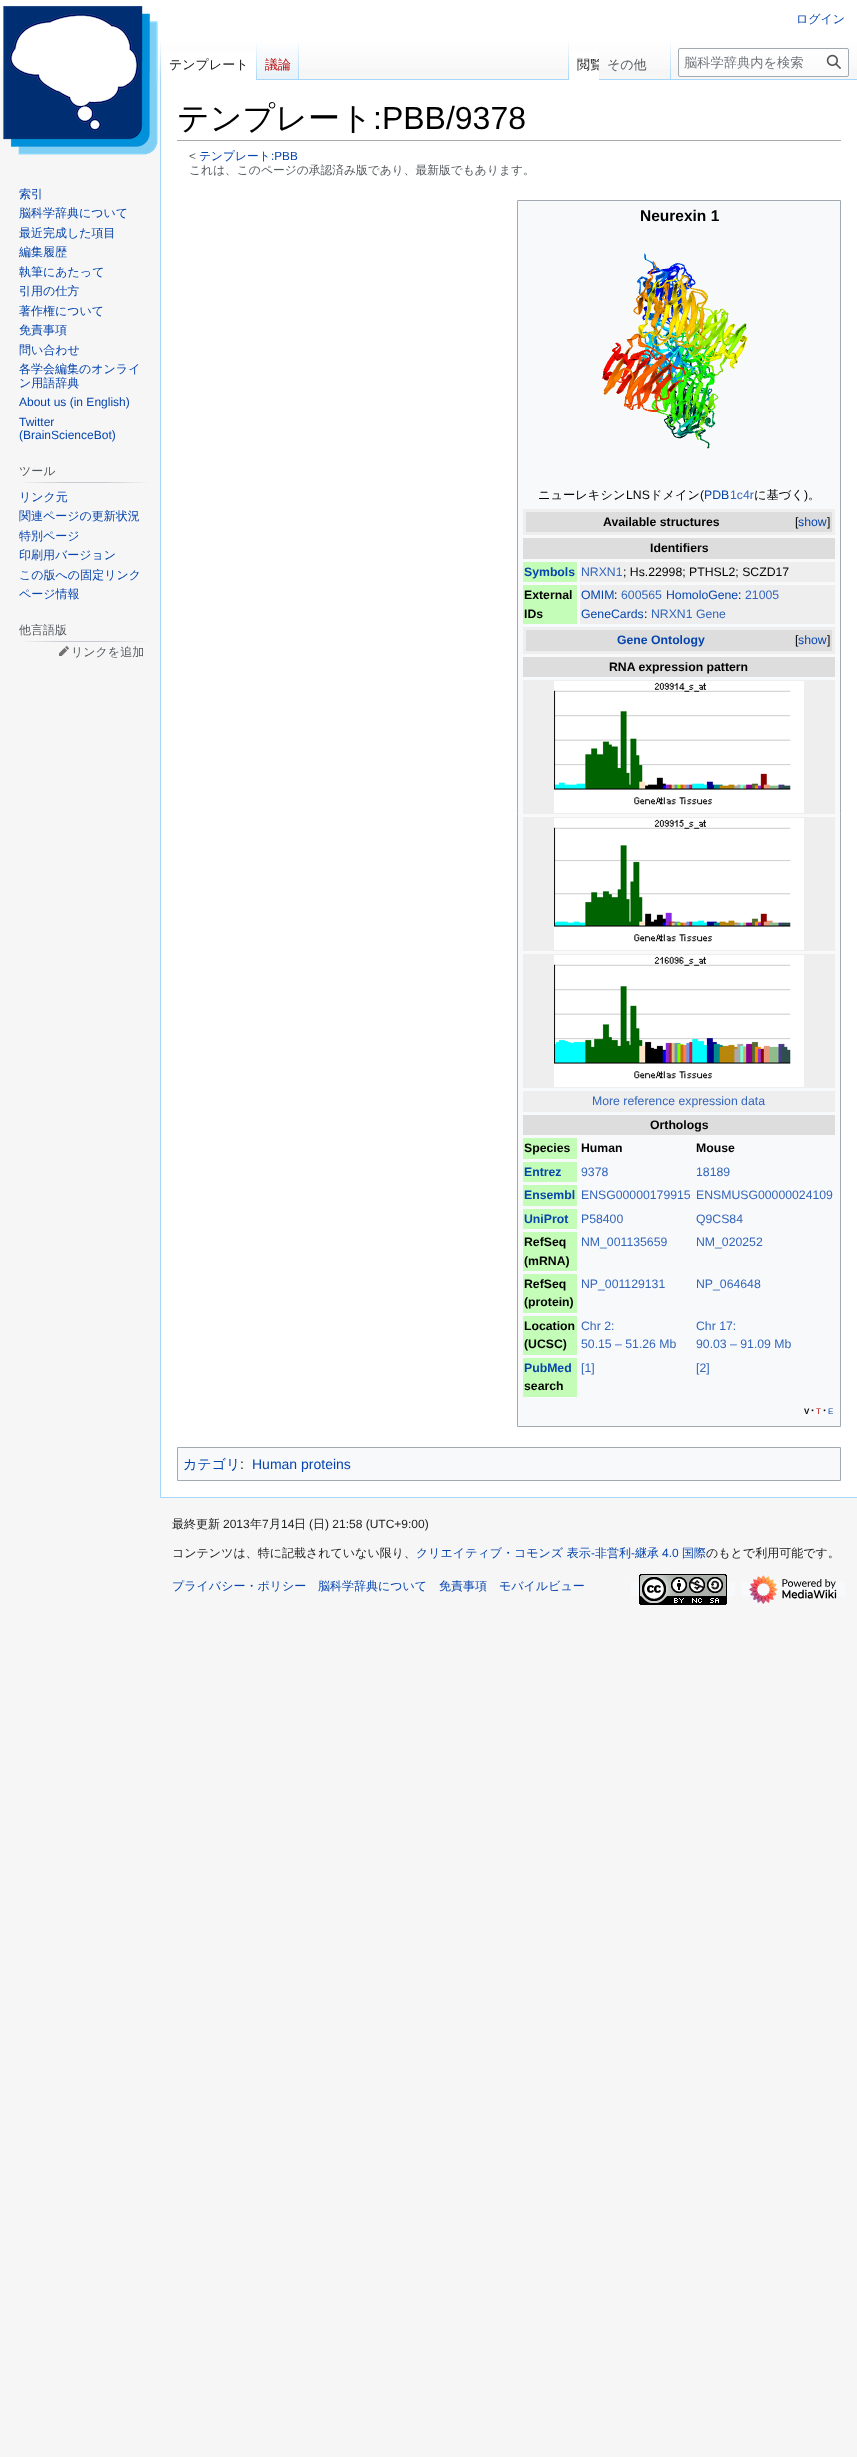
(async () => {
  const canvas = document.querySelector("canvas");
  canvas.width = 857;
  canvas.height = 2457;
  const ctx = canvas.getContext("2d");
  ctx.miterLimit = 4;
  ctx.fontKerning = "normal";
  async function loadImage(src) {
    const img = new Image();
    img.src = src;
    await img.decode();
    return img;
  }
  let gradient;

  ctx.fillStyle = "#f6f6f6";
  ctx.fillRect(0, 0, 857, 2457);
  gradient = ctx.createLinearGradient(429, 0, 429, 80);
  gradient.addColorStop(0.5, "#ffffff");
  gradient.addColorStop(1, "#f6f6f6");
  ctx.fillStyle = gradient;
  ctx.fillRect(0, 0, 857, 69);
  ctx.fillStyle = "#a7d7f9";
  ctx.fillRect(160, 1497, 697, 1);
  ctx.fillRect(160, 79, 1, 1419);
  gradient = ctx.createLinearGradient(161, 40, 161, 80);
  gradient.addColorStop(0, "rgba(167, 215, 249, 0)");
  gradient.addColorStop(1, "#a7d7f9");
  ctx.fillStyle = gradient;
  ctx.fillRect(160, 40, 1, 40);
  ctx.fillStyle = "#ffffff";
  ctx.fillRect(161, 51, 95, 29);
  gradient = ctx.createLinearGradient(257, 40, 257, 80);
  gradient.addColorStop(0, "#ffffff");
  gradient.addColorStop(1, "#a7d7f9");
  ctx.fillStyle = gradient;
  ctx.fillRect(256, 40, 1, 40);
  gradient = ctx.createLinearGradient(278, 80, 278, 40);
  gradient.addColorStop(0, "#77c1f6");
  gradient.addColorStop(0.03, "#e8f2f8");
  gradient.addColorStop(1, "#ffffff");
  ctx.fillStyle = gradient;
  ctx.fillRect(257, 46, 42, 34);
  gradient = ctx.createLinearGradient(299, 40, 299, 80);
  gradient.addColorStop(0, "rgba(167, 215, 249, 0)");
  gradient.addColorStop(1, "#a7d7f9");
  ctx.fillStyle = gradient;
  ctx.fillRect(298, 40, 1, 40);
  ctx.fillStyle = "#a7d7f9";
  ctx.fillRect(299, 79, 558, 1);
  gradient = ctx.createLinearGradient(569, 40, 569, 80);
  gradient.addColorStop(0, "rgba(167, 215, 249, 0)");
  gradient.addColorStop(1, "#a7d7f9");
  ctx.fillStyle = gradient;
  ctx.fillRect(568, 40, 1, 40);
  ctx.fillStyle = "#ffffff";
  ctx.fillRect(569, 51, 30, 29);
  gradient = ctx.createLinearGradient(671, 40, 671, 80);
  gradient.addColorStop(0, "rgba(167, 215, 249, 0)");
  gradient.addColorStop(1, "#a7d7f9");
  ctx.fillStyle = gradient;
  ctx.fillRect(670, 40, 1, 40);
  ctx.fillStyle = "rgba(255, 255, 255, 0.5)";
  ctx.beginPath();
  ctx.roundRect(678.5, 48.5, 170, 28, 1.5);
  ctx.fill();
  ctx.strokeStyle = "#a2a9b1";
  ctx.stroke();
  ctx.drawImage(await loadImage("img/1.png"), 826, 54, 15, 15);
  ctx.drawImage(await loadImage("img/2.png"), 3, 6, 155, 149);
  gradient = ctx.createLinearGradient(19, 483, 150, 483);
  gradient.addColorStop(0, "#f6f6f6");
  gradient.addColorStop(0.33, "#c8ccd1");
  gradient.addColorStop(0.66, "#c8ccd1");
  gradient.addColorStop(1, "#f6f6f6");
  ctx.fillStyle = gradient;
  ctx.fillRect(19, 482, 131, 1);
  gradient = ctx.createLinearGradient(19, 642, 150, 642);
  gradient.addColorStop(0, "#f6f6f6");
  gradient.addColorStop(0.33, "#c8ccd1");
  gradient.addColorStop(0.66, "#c8ccd1");
  gradient.addColorStop(1, "#f6f6f6");
  ctx.fillStyle = gradient;
  ctx.fillRect(19, 641, 131, 1);
  ctx.drawImage(await loadImage("img/3.png"), 59, 646, 10, 10);
  ctx.fillStyle = "#ffffff";
  ctx.fillRect(161, 80, 696, 1417);
  ctx.fillStyle = "#aaaaaa";
  ctx.fillRect(177, 140, 664, 1);
  ctx.fillStyle = "#f8f9fa";
  ctx.beginPath();
  ctx.rect(517.5, 200.5, 323, 1226);
  ctx.fill();
  ctx.stroke();
  ctx.drawImage(await loadImage("img/4.png"), 602, 253, 146, 196);
  for (const [x, y, w, h, color] of [
    [523, 509, 312, 26, "#eeeeee"],
    [526, 512, 306, 20, "#dddddd"],
    [523, 538, 312, 21, "#dddddd"],
    [523, 562, 54, 20, "#c3fdb8"],
    [580, 562, 255, 20, "#eeeeee"],
    [523, 585, 54, 39, "#c3fdb8"],
    [580, 585, 255, 39, "#eeeeee"],
    [523, 627, 312, 27, "#eeeeee"],
    [526, 630, 306, 21, "#dddddd"],
    [523, 657, 312, 20, "#dddddd"],
    [523, 680, 312, 134, "#eeeeee"],
  ]) {
    ctx.fillStyle = color;
    ctx.fillRect(x, y, w, h);
  }
  ctx.drawImage(await loadImage("img/5.png"), 554, 681, 250, 132);
  ctx.fillRect(523, 817, 312, 134);
  ctx.drawImage(await loadImage("img/6.png"), 554, 818, 250, 132);
  ctx.fillRect(523, 954, 312, 134);
  ctx.drawImage(await loadImage("img/7.png"), 554, 955, 250, 132);
  for (const [x, y, w, h, color] of [
    [523, 1091, 312, 21, "#eeeeee"],
    [523, 1115, 312, 20, "#dddddd"],
    [523, 1138, 54, 21, "#c3fdb8"],
    [523, 1162, 54, 20, "#c3fdb8"],
    [523, 1185, 54, 21, "#c3fdb8"],
    [523, 1209, 54, 20, "#c3fdb8"],
    [523, 1232, 54, 39, "#c3fdb8"],
    [523, 1274, 54, 39, "#c3fdb8"],
    [523, 1316, 54, 39, "#c3fdb8"],
    [523, 1358, 54, 39, "#c3fdb8"],
  ]) {
    ctx.fillStyle = color;
    ctx.fillRect(x, y, w, h);
  }
  ctx.fillStyle = "#f8f9fa";
  ctx.beginPath();
  ctx.rect(177.5, 1447.5, 663, 33);
  ctx.fill();
  ctx.stroke();
  ctx.fillRect(631, 1582, 104, 14);
  ctx.drawImage(await loadImage("img/8.png"), 639, 1574, 88, 31);
  ctx.fillRect(741, 1582, 104, 14);
  ctx.drawImage(await loadImage("img/9.png"), 749, 1575, 88, 29);
  ctx.font = "500 12px WenQuanYi Zen Hei";
  ctx.fillStyle = "#0645ad";
  ctx.fillText("ログイン", 796, 23);
  ctx.font = "500 13px WenQuanYi Zen Hei";
  ctx.fillStyle = "#202122";
  ctx.fillText("テンプレート", 169, 69);
  ctx.fillStyle = "#ba0000";
  ctx.fillText("議論", 265, 69);
  ctx.save();
  ctx.beginPath();
  ctx.rect(569, 40, 30, 40);
  ctx.clip();
  ctx.fillStyle = "#202122";
  ctx.fillText("閲覧", 577, 69);
  ctx.restore();
  ctx.fillStyle = "#54595d";
  ctx.fillText("その他", 607, 69);
  ctx.font = "500 13.25px WenQuanYi Zen Hei";
  ctx.fillStyle = "#72777d";
  ctx.fillText("脳科学辞典内を検索", 684, 67);
  ctx.font = "500 12px WenQuanYi Zen Hei";
  ctx.fillStyle = "#0645ad";
  for (const [text, x, y] of [
    ["索引", 19, 198],
    ["脳科学辞典について", 19, 217],
    ["最近完成した項目", 19, 237],
    ["編集履歴", 19, 256],
    ["執筆にあたって", 19, 276],
    ["引用の仕方", 19, 295],
    ["著作権について", 19, 315],
    ["免責事項", 19, 334],
    ["問い合わせ", 19, 354],
    ["各学会編集のオンライ", 19, 373],
    ["ン用語辞典", 19, 387],
  ]) {
    ctx.fillText(text, x, y);
  }
  ctx.font = "12px Liberation Sans";
  for (const [text, x, y] of [
    ["About us (in English)", 19, 406],
    ["Twitter", 19, 426],
    ["(BrainScienceBot)", 19, 439],
  ]) {
    ctx.fillText(text, x, y);
  }
  ctx.font = "500 12px WenQuanYi Zen Hei";
  ctx.fillStyle = "#54595d";
  ctx.fillText("ツール", 19, 475);
  ctx.fillStyle = "#0645ad";
  for (const [text, x, y] of [
    ["リンク元", 19, 501],
    ["関連ページの更新状況", 19, 520],
    ["特別ページ", 19, 540],
    ["印刷用バージョン", 19, 559],
    ["この版への固定リンク", 19, 579],
    ["ページ情報", 19, 598],
  ]) {
    ctx.fillText(text, x, y);
  }
  ctx.fillStyle = "#54595d";
  ctx.fillText("他言語版", 19, 634);
  ctx.fillText("リンクを追加", 71, 656);
  ctx.font = "500 32px WenQuanYi Zen Hei";
  ctx.fillStyle = "#000000";
  ctx.fillText("テンプレート", 177, 129);
  ctx.font = "32px Liberation Sans";
  ctx.fillText(":PBB/9378", 373, 129);
  ctx.font = "11.75px Liberation Sans";
  ctx.fillStyle = "#54595d";
  ctx.fillText("<", 189, 160);
  ctx.font = "500 11.75px WenQuanYi Zen Hei";
  ctx.fillStyle = "#0645ad";
  ctx.fillText("テンプレート", 199, 160);
  ctx.font = "11.75px Liberation Sans";
  ctx.fillText(":PBB", 271, 160);
  ctx.font = "500 11.75px WenQuanYi Zen Hei";
  ctx.fillStyle = "#54595d";
  ctx.fillText("これは、このページの承認済み版であり、最新版でもあります。", 189, 174);
  ctx.font = "bold 15.5px Liberation Sans";
  ctx.fillStyle = "#000000";
  ctx.fillText("Neurexin 1", 640, 221);
  ctx.font = "500 12.25px WenQuanYi Zen Hei";
  ctx.fillText("ニューレキシン", 538, 499);
  ctx.font = "12.25px Liberation Sans";
  ctx.fillText("LNS", 626, 499);
  ctx.font = "500 12.25px WenQuanYi Zen Hei";
  ctx.fillText("ドメイン", 650, 499);
  ctx.font = "12.25px Liberation Sans";
  ctx.fillText("(", 700, 499);
  ctx.fillStyle = "#0645ad";
  ctx.fillText("PDB", 704, 499);
  ctx.fillStyle = "#3366bb";
  ctx.fillText("1c4r", 730, 499);
  ctx.font = "500 12.25px WenQuanYi Zen Hei";
  ctx.fillStyle = "#000000";
  ctx.fillText("に基づく", 754, 499);
  ctx.font = "12.25px Liberation Sans";
  ctx.fillText(")", 804, 499);
  ctx.font = "500 12.25px WenQuanYi Zen Hei";
  ctx.fillText("。", 808, 499);
  ctx.font = "bold 12.25px Liberation Sans";
  ctx.fillText("Available structures", 603, 526);
  ctx.font = "12.25px Liberation Sans";
  ctx.fillText("[", 795, 526);
  ctx.fillStyle = "#0645ad";
  ctx.fillText("show", 798, 526);
  ctx.fillStyle = "#000000";
  ctx.fillText("]", 827, 526);
  ctx.font = "bold 12.25px Liberation Sans";
  ctx.fillText("Identifiers", 650, 552);
  ctx.fillStyle = "#0645ad";
  ctx.fillText("Symbols", 524, 576);
  ctx.font = "12.25px Liberation Sans";
  ctx.fillStyle = "#3366bb";
  ctx.fillText("NRXN1", 581, 576);
  ctx.fillStyle = "#000000";
  ctx.fillText("; Hs.22998; PTHSL2; SCZD17", 623, 576);
  ctx.font = "bold 12.25px Liberation Sans";
  ctx.fillText("External", 524, 599);
  ctx.fillText("IDs", 524, 618);
  ctx.font = "12.25px Liberation Sans";
  ctx.fillStyle = "#0645ad";
  ctx.fillText("OMIM", 581, 599);
  ctx.fillStyle = "#000000";
  ctx.fillText(":", 614, 599);
  ctx.fillStyle = "#3366bb";
  ctx.fillText("600565", 621, 599);
  ctx.fillStyle = "#0645ad";
  ctx.fillText("HomoloGene", 666, 599);
  ctx.fillStyle = "#000000";
  ctx.fillText(":", 738, 599);
  ctx.fillStyle = "#3366bb";
  ctx.fillText("21005", 745, 599);
  ctx.fillStyle = "#0645ad";
  ctx.fillText("GeneCards", 581, 618);
  ctx.fillStyle = "#000000";
  ctx.fillText(":", 644, 618);
  ctx.fillStyle = "#3366bb";
  ctx.fillText("NRXN1 Gene", 651, 618);
  ctx.font = "bold 12.25px Liberation Sans";
  ctx.fillStyle = "#0645ad";
  ctx.fillText("Gene Ontology", 617, 644);
  ctx.font = "12.25px Liberation Sans";
  ctx.fillStyle = "#000000";
  ctx.fillText("[", 795, 644);
  ctx.fillStyle = "#0645ad";
  ctx.fillText("show", 798, 644);
  ctx.fillStyle = "#000000";
  ctx.fillText("]", 827, 644);
  ctx.font = "bold 12.25px Liberation Sans";
  ctx.fillText("RNA expression pattern", 609, 671);
  ctx.font = "12.25px Liberation Sans";
  ctx.fillStyle = "#3366bb";
  ctx.fillText("More reference expression data", 592, 1105);
  ctx.font = "bold 12.25px Liberation Sans";
  ctx.fillStyle = "#000000";
  for (const [text, x, y] of [
    ["Orthologs", 650, 1129],
    ["Species", 524, 1152],
    ["Human", 581, 1152],
    ["Mouse", 696, 1152],
  ]) {
    ctx.fillText(text, x, y);
  }
  ctx.fillStyle = "#0645ad";
  ctx.fillText("Entrez", 524, 1176);
  ctx.font = "12.25px Liberation Sans";
  ctx.fillStyle = "#3366bb";
  ctx.fillText("9378", 581, 1176);
  ctx.fillText("18189", 696, 1176);
  ctx.font = "bold 12.25px Liberation Sans";
  ctx.fillStyle = "#0645ad";
  ctx.fillText("Ensembl", 524, 1199);
  ctx.font = "12.25px Liberation Sans";
  ctx.fillStyle = "#3366bb";
  ctx.fillText("ENSG00000179915", 581, 1199);
  ctx.fillText("ENSMUSG00000024109", 696, 1199);
  ctx.font = "bold 12.25px Liberation Sans";
  ctx.fillStyle = "#0645ad";
  ctx.fillText("UniProt", 524, 1223);
  ctx.font = "12.25px Liberation Sans";
  ctx.fillStyle = "#3366bb";
  ctx.fillText("P58400", 581, 1223);
  ctx.fillText("Q9CS84", 696, 1223);
  ctx.font = "bold 12.25px Liberation Sans";
  ctx.fillStyle = "#000000";
  ctx.fillText("RefSeq", 524, 1246);
  ctx.fillText("(mRNA)", 524, 1265);
  ctx.font = "12.25px Liberation Sans";
  ctx.fillStyle = "#3366bb";
  ctx.fillText("NM_001135659", 581, 1246);
  ctx.fillText("NM_020252", 696, 1246);
  ctx.font = "bold 12.25px Liberation Sans";
  ctx.fillStyle = "#000000";
  ctx.fillText("RefSeq", 524, 1288);
  ctx.fillText("(protein)", 524, 1306);
  ctx.font = "12.25px Liberation Sans";
  ctx.fillStyle = "#3366bb";
  ctx.fillText("NP_001129131", 581, 1288);
  ctx.fillText("NP_064648", 696, 1288);
  ctx.font = "bold 12.25px Liberation Sans";
  ctx.fillStyle = "#000000";
  ctx.fillText("Location", 524, 1330);
  ctx.fillText("(UCSC)", 524, 1348);
  ctx.font = "12.25px Liberation Sans";
  ctx.fillStyle = "#3366bb";
  for (const [text, x, y] of [
    ["Chr 2:", 581, 1330],
    ["50.15 – 51.26 Mb", 581, 1348],
    ["Chr 17:", 696, 1330],
    ["90.03 – 91.09 Mb", 696, 1348],
  ]) {
    ctx.fillText(text, x, y);
  }
  ctx.font = "bold 12.25px Liberation Sans";
  ctx.fillStyle = "#0645ad";
  ctx.fillText("PubMed", 524, 1372);
  ctx.fillStyle = "#000000";
  ctx.fillText("search", 524, 1390);
  ctx.font = "12.25px Liberation Sans";
  ctx.fillStyle = "#3366bb";
  ctx.fillText("[1]", 581, 1372);
  ctx.fillText("[2]", 696, 1372);
  ctx.font = "bold 8px Liberation Sans";
  ctx.fillStyle = "#000000";
  ctx.fillText("V", 804, 1414);
  ctx.font = "bold 11px Liberation Sans";
  ctx.fillText("·", 811, 1414);
  ctx.font = "8px Liberation Sans";
  ctx.fillStyle = "#ba0000";
  ctx.fillText("T", 816, 1414);
  ctx.font = "bold 11px Liberation Sans";
  ctx.fillStyle = "#000000";
  ctx.fillText("·", 823, 1414);
  ctx.font = "8px Liberation Sans";
  ctx.fillStyle = "#0645ad";
  ctx.fillText("E", 828, 1414);
  ctx.font = "500 14px WenQuanYi Zen Hei";
  ctx.fillText("カテゴリ", 183, 1469);
  ctx.font = "14px Liberation Sans";
  ctx.fillStyle = "#202122";
  ctx.fillText(":", 240, 1469);
  ctx.fillStyle = "#0645ad";
  ctx.fillText("Human proteins", 252, 1469);
  ctx.font = "500 12px WenQuanYi Zen Hei";
  ctx.fillStyle = "#202122";
  ctx.fillText("最終更新", 172, 1528);
  ctx.font = "12px Liberation Sans";
  ctx.fillText("2013", 223, 1528);
  ctx.font = "500 12px WenQuanYi Zen Hei";
  ctx.fillText("年", 250, 1528);
  ctx.font = "12px Liberation Sans";
  ctx.fillText("7", 262, 1528);
  ctx.font = "500 12px WenQuanYi Zen Hei";
  ctx.fillText("月", 269, 1528);
  ctx.font = "12px Liberation Sans";
  ctx.fillText("14", 281, 1528);
  ctx.font = "500 12px WenQuanYi Zen Hei";
  ctx.fillText("日", 294, 1528);
  ctx.font = "12px Liberation Sans";
  ctx.fillText("(", 309, 1528);
  ctx.font = "500 12px WenQuanYi Zen Hei";
  ctx.fillText("日", 313, 1528);
  ctx.font = "12px Liberation Sans";
  ctx.fillText(") 21:58 (UTC+9:00)", 325, 1528);
  ctx.font = "500 12px WenQuanYi Zen Hei";
  ctx.fillText("コンテンツは、特に記載されていない限り、", 172, 1557);
  ctx.fillStyle = "#0645ad";
  ctx.fillText("クリエイティブ・コモンズ 表示", 416, 1557);
  ctx.font = "12px Liberation Sans";
  ctx.fillText("-", 591, 1557);
  ctx.font = "500 12px WenQuanYi Zen Hei";
  ctx.fillText("非営利", 595, 1557);
  ctx.font = "12px Liberation Sans";
  ctx.fillText("-", 631, 1557);
  ctx.font = "500 12px WenQuanYi Zen Hei";
  ctx.fillText("継承", 635, 1557);
  ctx.font = "12px Liberation Sans";
  ctx.fillText("4.0", 662, 1557);
  ctx.font = "500 12px WenQuanYi Zen Hei";
  ctx.fillText("国際", 682, 1557);
  ctx.fillStyle = "#202122";
  ctx.fillText("のもとで利用可能です。", 706, 1557);
  ctx.fillStyle = "#0645ad";
  for (const [text, x, y] of [
    ["プライバシー・ポリシー", 172, 1590],
    ["脳科学辞典について", 318, 1590],
    ["免責事項", 439, 1590],
    ["モバイルビュー", 499, 1590],
  ]) {
    ctx.fillText(text, x, y);
  }
})();
